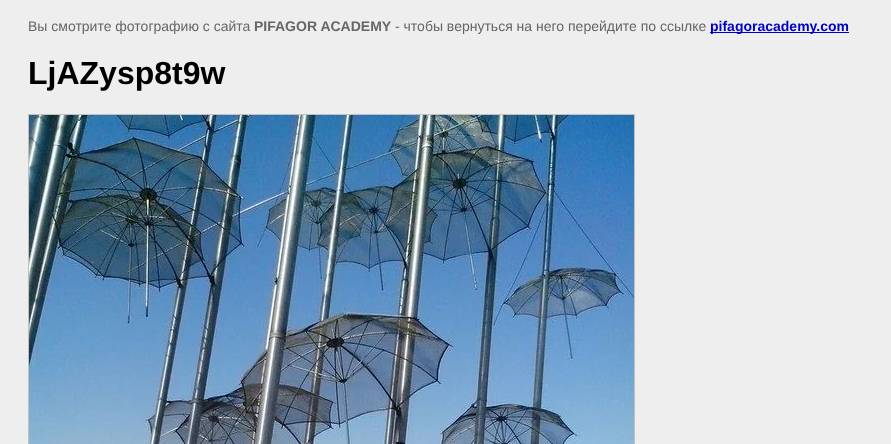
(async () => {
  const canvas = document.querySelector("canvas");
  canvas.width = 891;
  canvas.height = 444;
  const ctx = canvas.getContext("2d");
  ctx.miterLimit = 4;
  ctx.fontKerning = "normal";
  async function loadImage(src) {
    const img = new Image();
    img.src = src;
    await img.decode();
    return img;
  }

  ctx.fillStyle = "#eeeeee";
  ctx.fillRect(0, 0, 891, 444);
  ctx.fillStyle = "#0000cc";
  ctx.fillRect(710, 32, 139, 1);
  ctx.strokeStyle = "#c0c0c0";
  ctx.strokeRect(28.5, 114.5, 606, 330);
  ctx.drawImage(await loadImage("img/1.png"), 29, 115, 605, 329);
  ctx.font = "14px Liberation Sans";
  ctx.fillStyle = "#666666";
  ctx.fillText("Вы смотрите фотографию с сайта", 28, 31);
  ctx.font = "bold 14px Liberation Sans";
  ctx.fillText("PIFAGOR ACADEMY", 254, 31);
  ctx.font = "14px Liberation Sans";
  ctx.fillText("- чтобы вернуться на него перейдите по ссылке", 395, 31);
  ctx.font = "bold 14px Liberation Sans";
  ctx.fillStyle = "#0000cc";
  ctx.fillText("pifagoracademy.com", 710, 31);
  ctx.font = "bold 32px Liberation Sans";
  ctx.fillStyle = "#000000";
  ctx.fillText("LjAZysp8t9w", 28, 84);
})();
